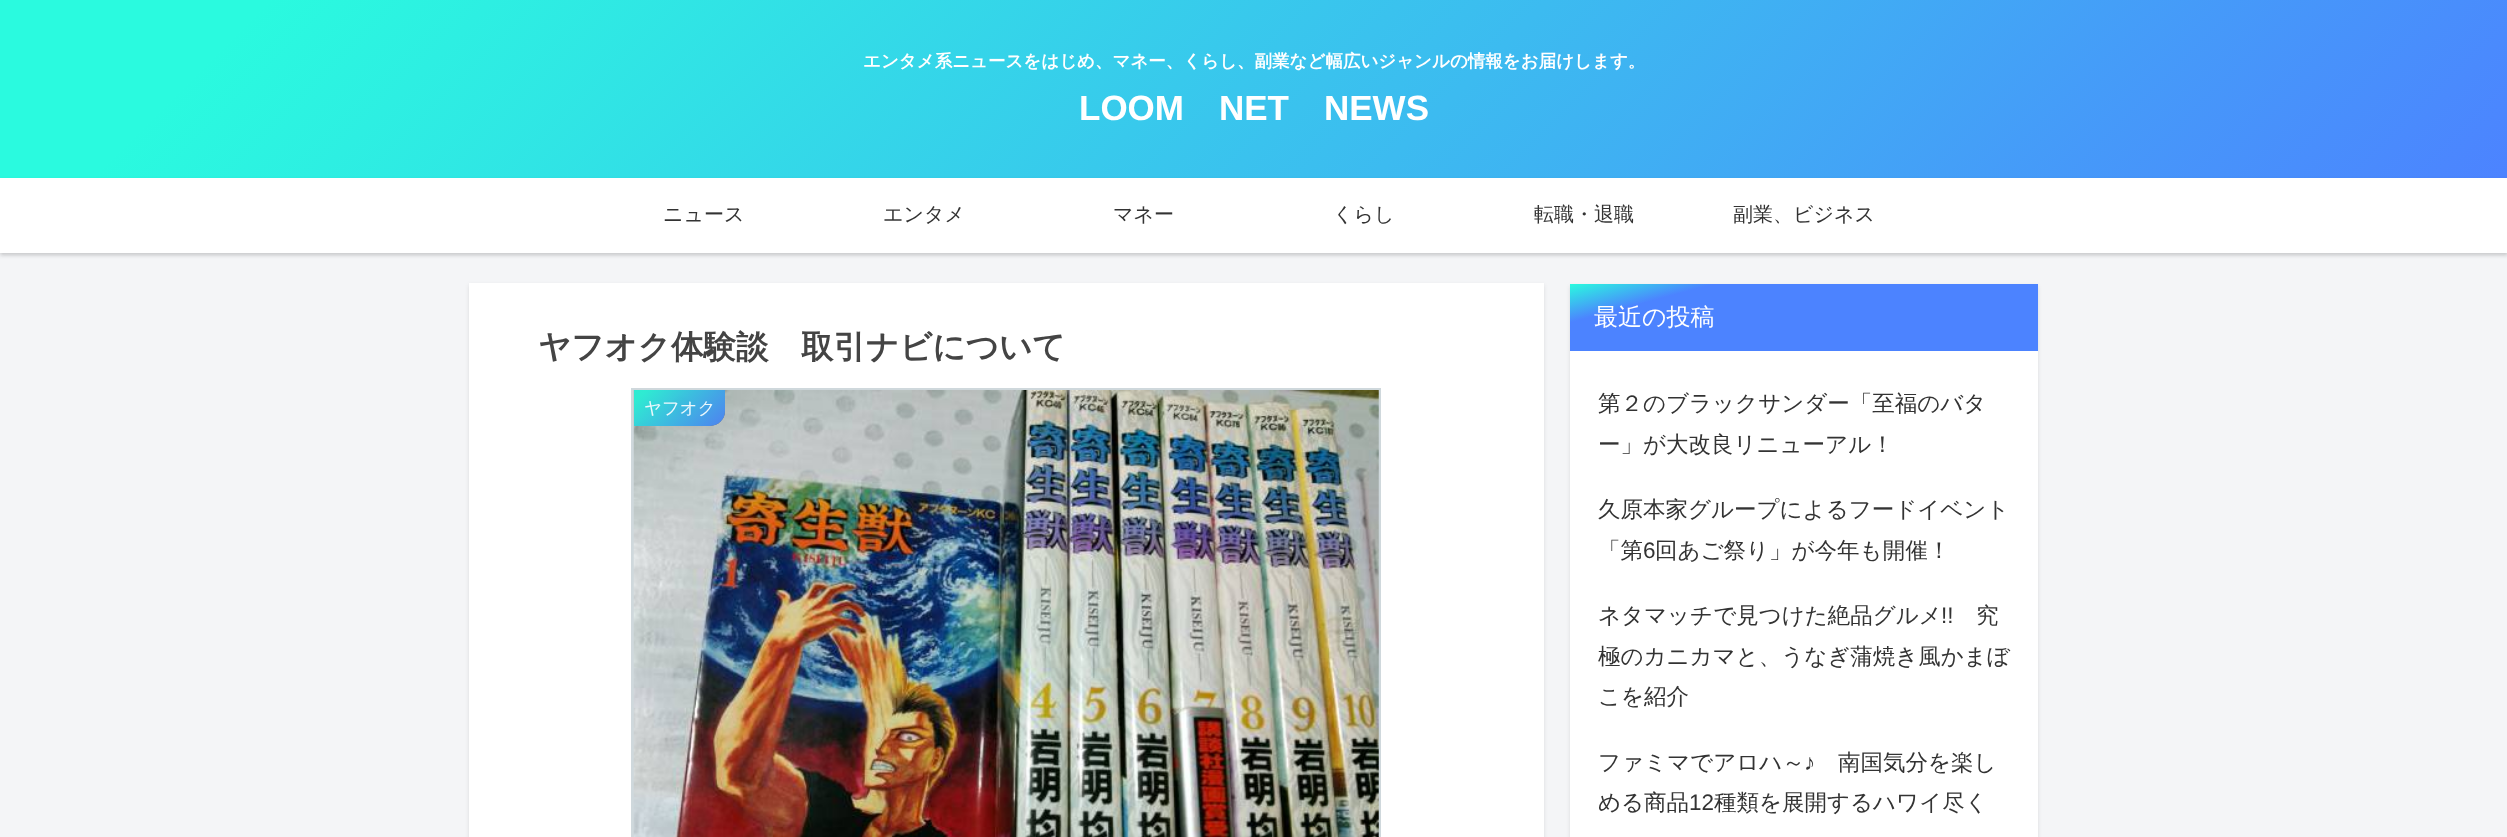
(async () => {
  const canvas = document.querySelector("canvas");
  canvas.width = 2507;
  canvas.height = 837;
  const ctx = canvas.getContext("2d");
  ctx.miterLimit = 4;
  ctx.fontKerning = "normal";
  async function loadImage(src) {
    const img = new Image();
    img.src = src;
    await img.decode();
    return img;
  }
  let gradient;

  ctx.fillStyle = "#f4f5f7";
  ctx.fillRect(0, 0, 2507, 837);
  ctx.fillStyle = "rgba(0, 0, 0, 0.1)";
  ctx.filter = "blur(2px)";
  ctx.beginPath();
  ctx.rect(0, 3, 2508, 252);
  ctx.fill();
  ctx.filter = "none";
  gradient = ctx.createLinearGradient(583, -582, 1925, 760);
  gradient.addColorStop(0.1, "#2afadf");
  gradient.addColorStop(1, "#4c83ff");
  ctx.fillStyle = gradient;
  ctx.fillRect(0, 0, 2507, 178);
  ctx.fillStyle = "rgba(0, 0, 0, 0.1)";
  ctx.filter = "blur(2px)";
  ctx.beginPath();
  ctx.rect(0, 180, 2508, 75);
  ctx.fill();
  ctx.filter = "none";
  ctx.fillStyle = "#ffffff";
  ctx.fillRect(0, 178, 2507, 75);
  ctx.fillStyle = "rgba(0, 0, 0, 0.1)";
  ctx.filter = "blur(2px)";
  ctx.beginPath();
  ctx.rect(469, 285, 1075, 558);
  ctx.fill();
  ctx.filter = "none";
  ctx.fillStyle = "#ffffff";
  ctx.fillRect(469, 283, 1075, 554);
  ctx.strokeStyle = "#cfd8dc";
  ctx.lineWidth = 3;
  ctx.strokeRect(632.5, 389.5, 747, 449);
  ctx.drawImage(await loadImage("img/1.png"), 633, 390, 746, 447);
  ctx.fillStyle = "rgba(51, 51, 51, 0.63)";
  ctx.beginPath();
  ctx.roundRect(634, 390, 91, 36, [0, 0, 15, 0]);
  ctx.fill();
  gradient = ctx.createLinearGradient(648, 376, 711, 440);
  gradient.addColorStop(0.1, "rgba(42, 250, 223, 0.9)");
  gradient.addColorStop(1, "rgba(76, 131, 255, 0.9)");
  ctx.fillStyle = gradient;
  ctx.beginPath();
  ctx.roundRect(634, 390, 91, 36, [0, 0, 15, 0]);
  ctx.fill();
  ctx.fillStyle = "rgba(0, 0, 0, 0.1)";
  ctx.filter = "blur(2px)";
  ctx.beginPath();
  ctx.rect(1570, 286, 468, 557);
  ctx.fill();
  ctx.filter = "none";
  ctx.fillStyle = "#ffffff";
  ctx.fillRect(1570, 351, 468, 486);
  gradient = ctx.createLinearGradient(1780, 228, 1828, 407);
  gradient.addColorStop(0, "#2afadf");
  gradient.addColorStop(0.2, "#4c83ff");
  ctx.fillStyle = gradient;
  ctx.fillRect(1570, 284, 468, 67);
  ctx.font = "bold 17.5px WenQuanYi Zen Hei";
  ctx.fillStyle = "#ffffff";
  ctx.fillText("エンタメ系ニュースをはじめ、マネー、くらし、副業など幅広いジャンルの情報をお届けします。", 863, 67);
  ctx.font = "bold 35px Liberation Sans";
  for (const [text, x, y] of [
    ["LOOM", 1079, 120],
    ["NET", 1219, 120],
    ["NEWS", 1324, 120],
  ]) {
    ctx.fillText(text, x, y);
  }
  ctx.font = "500 20px WenQuanYi Zen Hei";
  ctx.fillStyle = "#333333";
  for (const [text, x, y] of [
    ["ニュース", 663, 221],
    ["エンタメ", 883, 221],
    ["マネー", 1113, 221],
    ["くらし", 1333, 221],
    ["転職・退職", 1534, 221],
    ["副業、ビジネス", 1733, 221],
  ]) {
    ctx.fillText(text, x, y);
  }
  ctx.font = "bold 32.5px WenQuanYi Zen Hei";
  ctx.fillStyle = "#444444";
  ctx.fillText("ヤフオク体験談　取引ナビについて", 538, 358);
  ctx.font = "500 17.5px WenQuanYi Zen Hei";
  ctx.fillStyle = "#ecf8fc";
  ctx.fillText("ヤフオク", 644, 414);
  ctx.font = "500 24px WenQuanYi Zen Hei";
  ctx.fillStyle = "#ffffff";
  ctx.fillText("最近の投稿", 1594, 325);
  ctx.font = "500 22.5px WenQuanYi Zen Hei";
  ctx.fillStyle = "#333333";
  for (const [text, x, y] of [
    ["第２のブラックサンダー「至福のバタ", 1598, 411],
    ["ー」が大改良リニューアル！", 1598, 452],
    ["久原本家グループによるフードイベント", 1598, 517],
    ["「第", 1598, 558],
  ]) {
    ctx.fillText(text, x, y);
  }
  ctx.font = "22.5px Liberation Sans";
  ctx.fillText("6", 1643, 558);
  ctx.font = "500 22.5px WenQuanYi Zen Hei";
  ctx.fillText("回あご祭り」が今年も開催！", 1655, 558);
  ctx.fillText("ネタマッチで見つけた絶品グルメ", 1598, 623);
  ctx.font = "22.5px Liberation Sans";
  ctx.fillText("!!", 1941, 623);
  ctx.font = "500 22.5px WenQuanYi Zen Hei";
  for (const [text, x, y] of [
    ["究", 1976, 623],
    ["極のカニカマと、うなぎ蒲焼き風かまぼ", 1598, 664],
    ["こを紹介", 1598, 704],
    ["ファミマでアロハ～", 1598, 770],
  ]) {
    ctx.fillText(text, x, y);
  }
  ctx.font = "22.5px Liberation Sans";
  ctx.fillText("♪", 1804, 770);
  ctx.font = "500 22.5px WenQuanYi Zen Hei";
  ctx.fillText("南国気分を楽し", 1838, 770);
  ctx.fillText("める商品", 1598, 810);
  ctx.font = "22.5px Liberation Sans";
  ctx.fillText("12", 1689, 810);
  ctx.font = "500 22.5px WenQuanYi Zen Hei";
  ctx.fillText("種類を展開するハワイ尽く", 1714, 810);
})();
